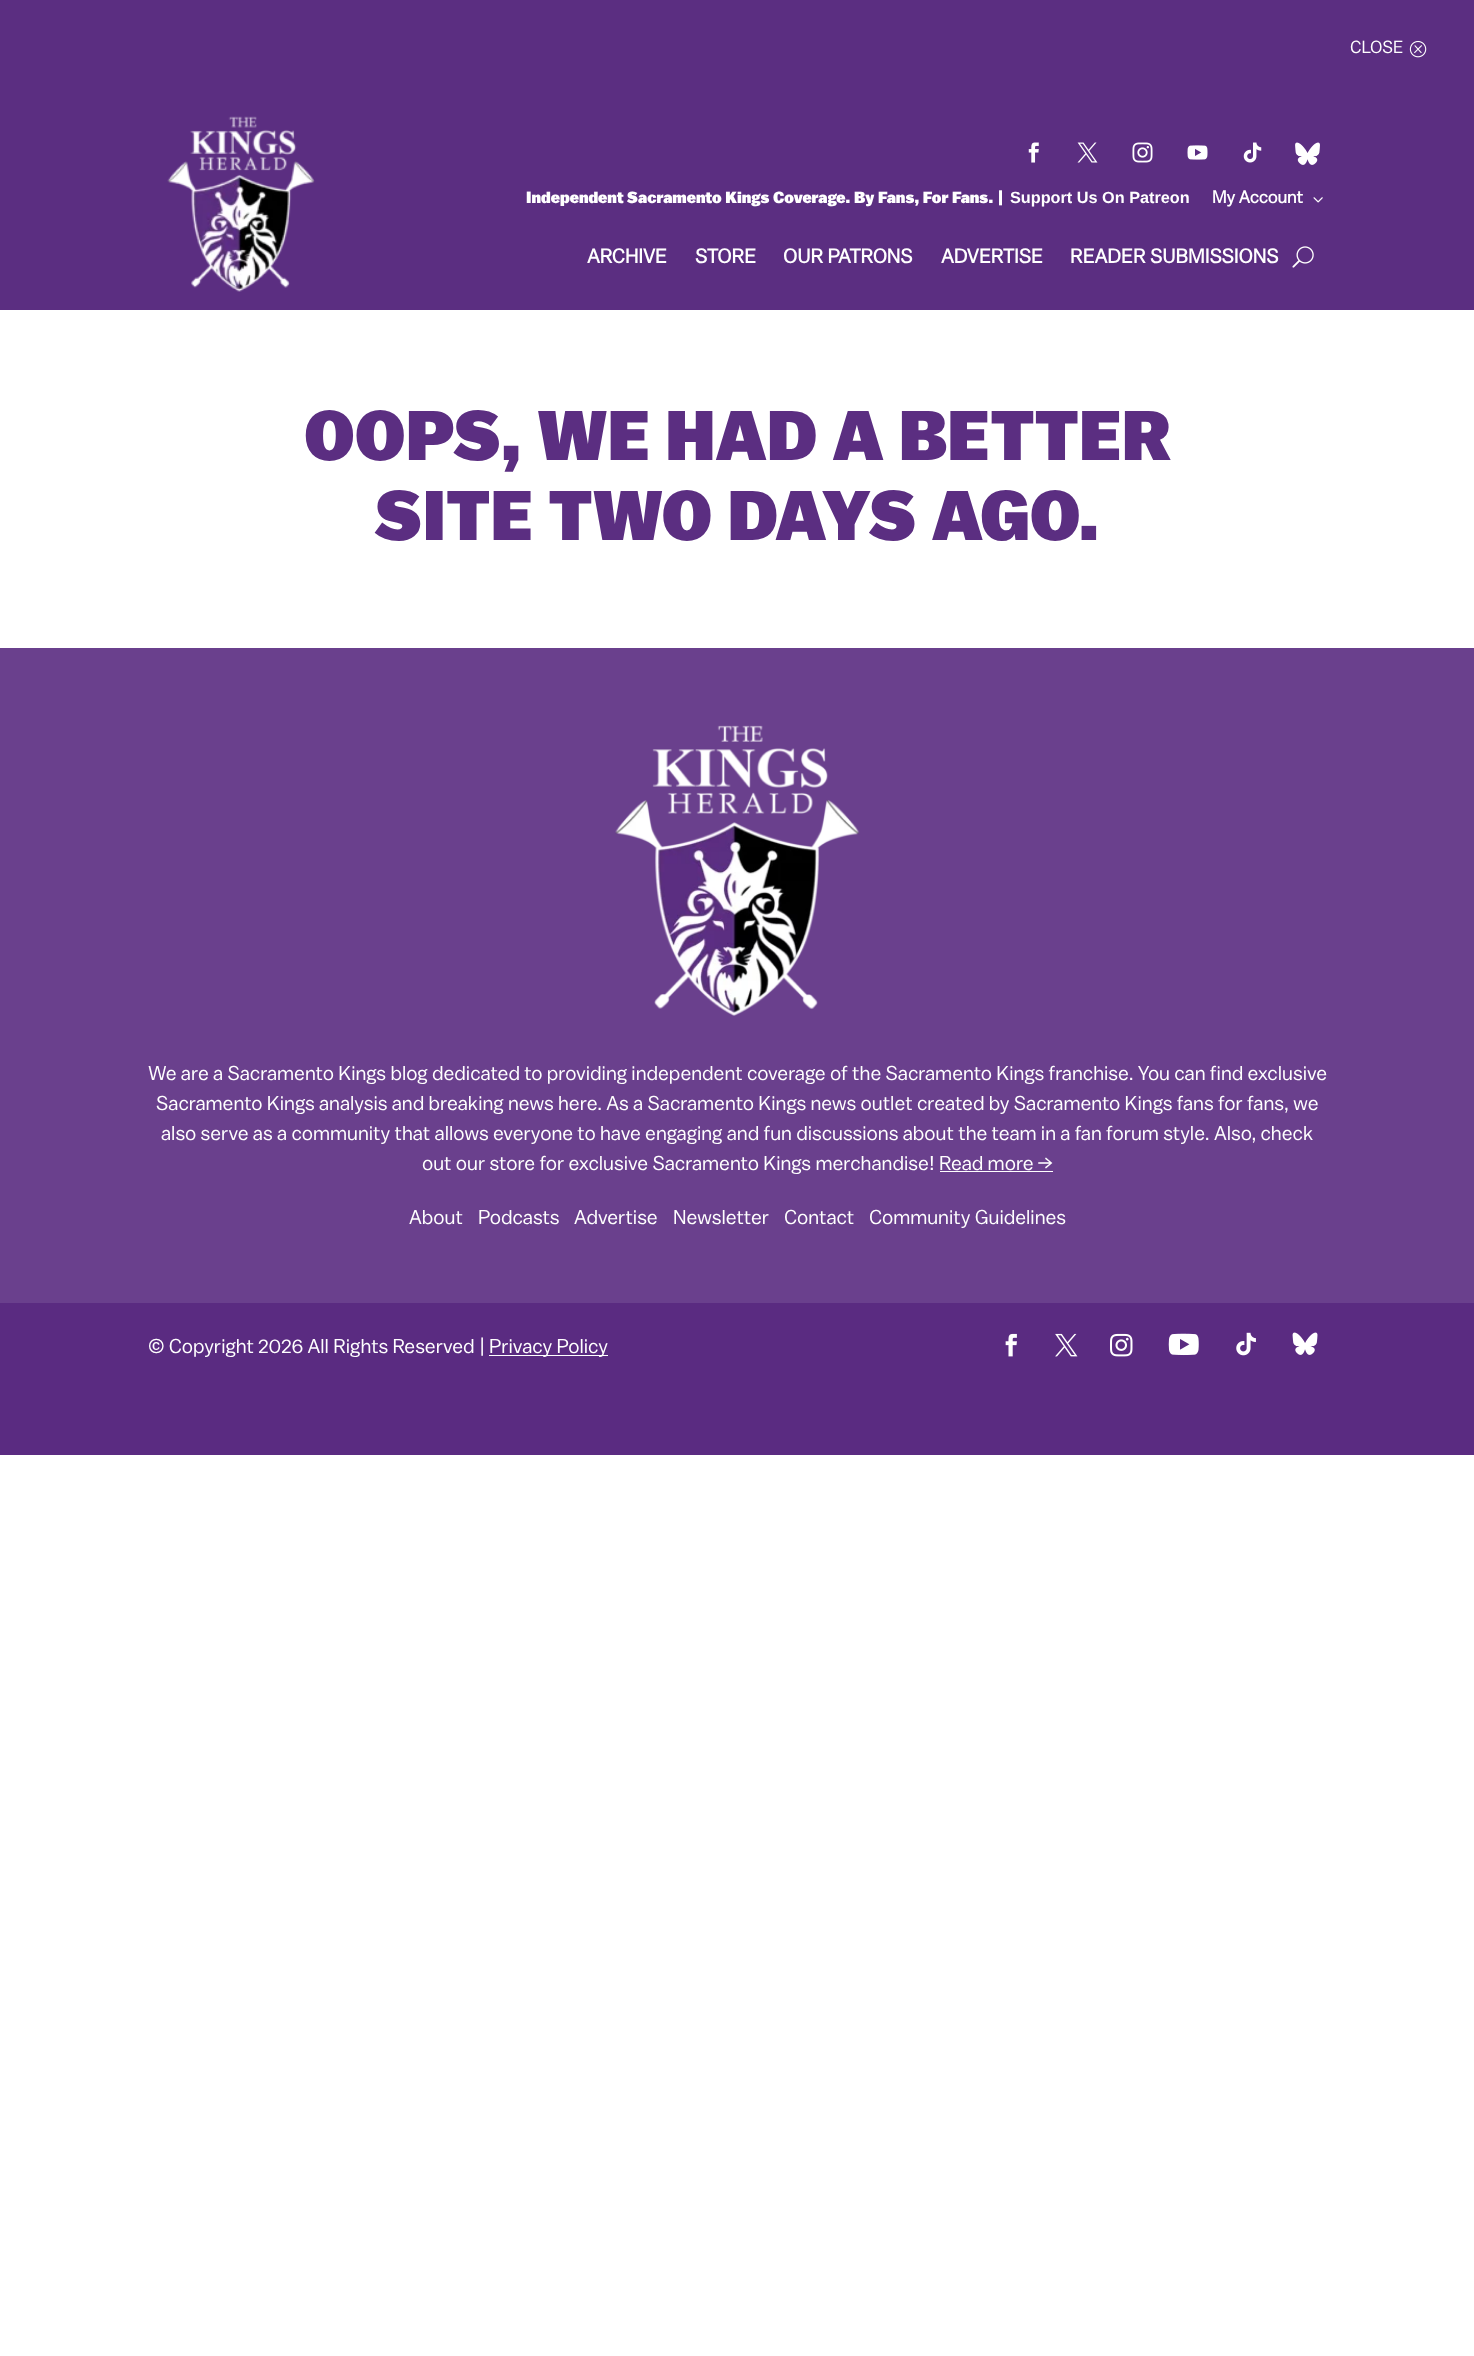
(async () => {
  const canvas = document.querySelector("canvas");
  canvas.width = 1474;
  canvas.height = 2356;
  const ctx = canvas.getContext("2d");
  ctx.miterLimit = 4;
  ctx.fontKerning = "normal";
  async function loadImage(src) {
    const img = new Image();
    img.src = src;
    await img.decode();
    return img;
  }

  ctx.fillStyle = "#ffffff";
  ctx.fillRect(0, 0, 1474, 2356);
  ctx.fillStyle = "#5b2e81";
  ctx.fillRect(0, 0, 1474, 310);
  ctx.drawImage(await loadImage("img/1.png"), 1409, 40, 18, 18);
  ctx.drawImage(await loadImage("img/2.png"), 167, 116, 148, 176);
  ctx.drawImage(await loadImage("img/3.png"), 1028, 142, 11, 21);
  ctx.drawImage(await loadImage("img/4.png"), 1077, 142, 21, 21);
  ctx.drawImage(await loadImage("img/5.png"), 1132, 142, 21, 21);
  ctx.drawImage(await loadImage("img/6.png"), 1187, 145, 21, 15);
  ctx.drawImage(await loadImage("img/7.png"), 1243, 142, 19, 21);
  ctx.drawImage(await loadImage("img/8.png"), 1295, 142, 25, 23);
  ctx.drawImage(await loadImage("img/9.png"), 1313, 197, 10, 6);
  ctx.drawImage(await loadImage("img/10.png"), 1292, 246, 22, 22);
  ctx.fillStyle = "#6a408d";
  ctx.fillRect(0, 648, 1474, 655);
  ctx.drawImage(await loadImage("img/11.png"), 615, 725, 245, 291);
  for (const [x, y, w, h, color] of [
    [940, 1171, 113, 1, "#ffffff"],
    [0, 1303, 1474, 152, "#5a2b81"],
    [489, 1355, 119, 1, "#ffffff"],
  ]) {
    ctx.fillStyle = color;
    ctx.fillRect(x, y, w, h);
  }
  ctx.drawImage(await loadImage("img/12.png"), 1005, 1333, 12, 24);
  ctx.drawImage(await loadImage("img/13.png"), 1055, 1333, 23, 24);
  ctx.drawImage(await loadImage("img/14.png"), 1110, 1333, 23, 24);
  ctx.drawImage(await loadImage("img/15.png"), 1168, 1333, 31, 23);
  ctx.drawImage(await loadImage("img/16.png"), 1236, 1332, 20, 24);
  ctx.drawImage(await loadImage("img/17.png"), 1292, 1332, 26, 23);
  ctx.font = "17.5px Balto";
  ctx.fillText("CLOSE", 1350, 53);
  ctx.font = "900 16.25px Balto";
  ctx.fillText("Independent Sacramento Kings Coverage. By Fans, For Fans. |", 526, 203);
  ctx.font = "bold 16.25px Liberation Sans";
  ctx.fillText("Support Us On Patreon", 1010, 203);
  ctx.font = "bold 17.5px Balto";
  ctx.fillText("My Account", 1212, 203);
  ctx.font = "bold 20px Balto";
  for (const [text, x, y] of [
    ["ARCHIVE", 587, 263],
    ["STORE", 695, 263],
    ["OUR PATRONS", 783, 263],
    ["ADVERTISE", 941, 263],
    ["READER SUBMISSIONS", 1070, 263],
  ]) {
    ctx.fillText(text, x, y);
  }
  ctx.font = "900 70px Balto";
  ctx.fillStyle = "#5b2e81";
  ctx.fillText("OOPS, WE HAD A BETTER", 304, 460);
  ctx.fillText("SITE TWO DAYS AGO.", 375, 540);
  ctx.font = "20px Balto";
  ctx.fillStyle = "#ffffff";
  for (const [text, x, y] of [
    ["We are a Sacramento Kings blog dedicated to providing independent coverage of the Sacramento Kings franchise. You can find exclusive", 148, 1080],
    ["Sacramento Kings analysis and breaking news here. As a Sacramento Kings news outlet created by Sacramento Kings fans for fans, we", 156, 1110],
    ["also serve as a community that allows everyone to have engaging and fun discussions about the team in a fan forum style. Also, check", 161, 1140],
    ["out our store for exclusive Sacramento Kings merchandise! Read more →", 422, 1170],
    ["About", 409, 1224],
    ["Podcasts", 478, 1224],
    ["Advertise", 574, 1224],
    ["Newsletter", 673, 1224],
    ["Contact", 784, 1224],
    ["Community Guidelines", 869, 1224],
    ["© Copyright 2026 All Rights Reserved |", 148, 1353],
    ["Privacy Policy", 489, 1353],
  ]) {
    ctx.fillText(text, x, y);
  }
})();
